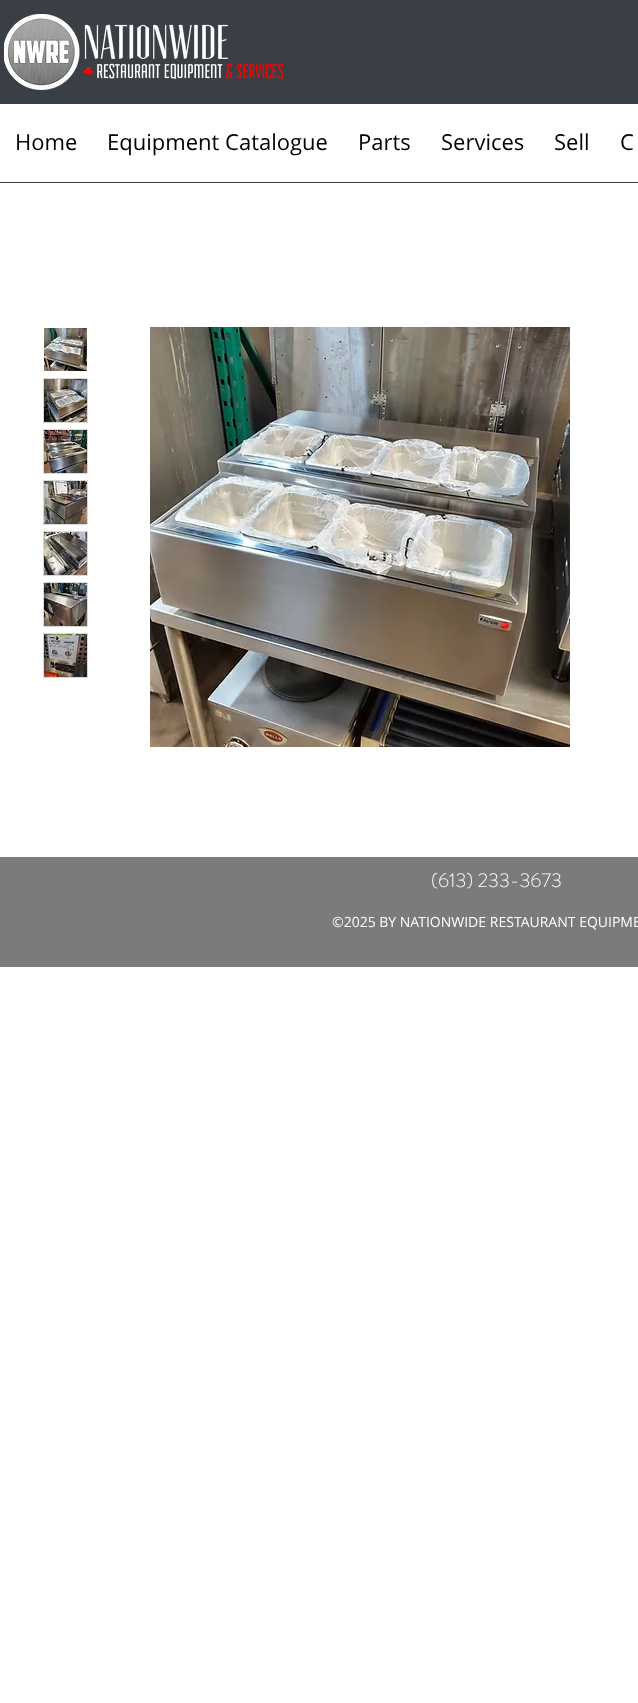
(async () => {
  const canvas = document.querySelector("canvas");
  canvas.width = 638;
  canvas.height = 1703;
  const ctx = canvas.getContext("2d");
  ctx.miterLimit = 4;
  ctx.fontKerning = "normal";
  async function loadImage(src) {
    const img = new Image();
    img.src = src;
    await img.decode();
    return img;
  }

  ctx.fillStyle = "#ffffff";
  ctx.fillRect(0, 0, 638, 1703);
  ctx.fillStyle = "#393f44";
  ctx.fillRect(0, 0, 638, 183);
  ctx.drawImage(await loadImage("img/1.png"), 4, 14, 280, 76);
  ctx.fillStyle = "#ffffff";
  ctx.fillRect(0, 104, 638, 78);
  ctx.drawImage(await loadImage("img/2.png"), 44, 328, 43, 43);
  ctx.fillStyle = "#d8d8d8";
  ctx.fillRect(43, 378, 45, 45);
  ctx.drawImage(await loadImage("img/3.png"), 44, 379, 43, 43);
  ctx.fillRect(43, 429, 45, 45);
  ctx.drawImage(await loadImage("img/4.png"), 44, 430, 43, 43);
  ctx.fillRect(43, 480, 45, 45);
  ctx.drawImage(await loadImage("img/5.png"), 44, 481, 43, 43);
  ctx.fillRect(43, 531, 45, 45);
  ctx.drawImage(await loadImage("img/6.png"), 44, 532, 43, 43);
  ctx.fillRect(43, 582, 45, 45);
  ctx.drawImage(await loadImage("img/7.png"), 44, 583, 43, 43);
  ctx.fillRect(43, 633, 45, 45);
  ctx.drawImage(await loadImage("img/8.png"), 44, 634, 43, 43);
  ctx.drawImage(await loadImage("img/9.png"), 150, 327, 420, 420);
  ctx.fillStyle = "#7b7b7b";
  ctx.fillRect(0, 857, 638, 110);
  ctx.font = "22px Open Sans";
  ctx.fillStyle = "#000000";
  for (const [text, x, y] of [
    ["Home", 15, 150],
    ["Equipment Catalogue", 107, 150],
    ["Parts", 358, 150],
    ["Services", 441, 150],
    ["Sell", 554, 150],
    ["C", 620, 150],
  ]) {
    ctx.fillText(text, x, y);
  }
  ctx.font = "300 20px 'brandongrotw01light'";
  ctx.fillStyle = "#ffffff";
  ctx.fillText("(613) 233-3673", 431, 887);
  ctx.font = "14px Open Sans";
  ctx.fillText("©2025 BY NATIONWIDE RESTAURANT EQUIPME", 332, 927);
})();
